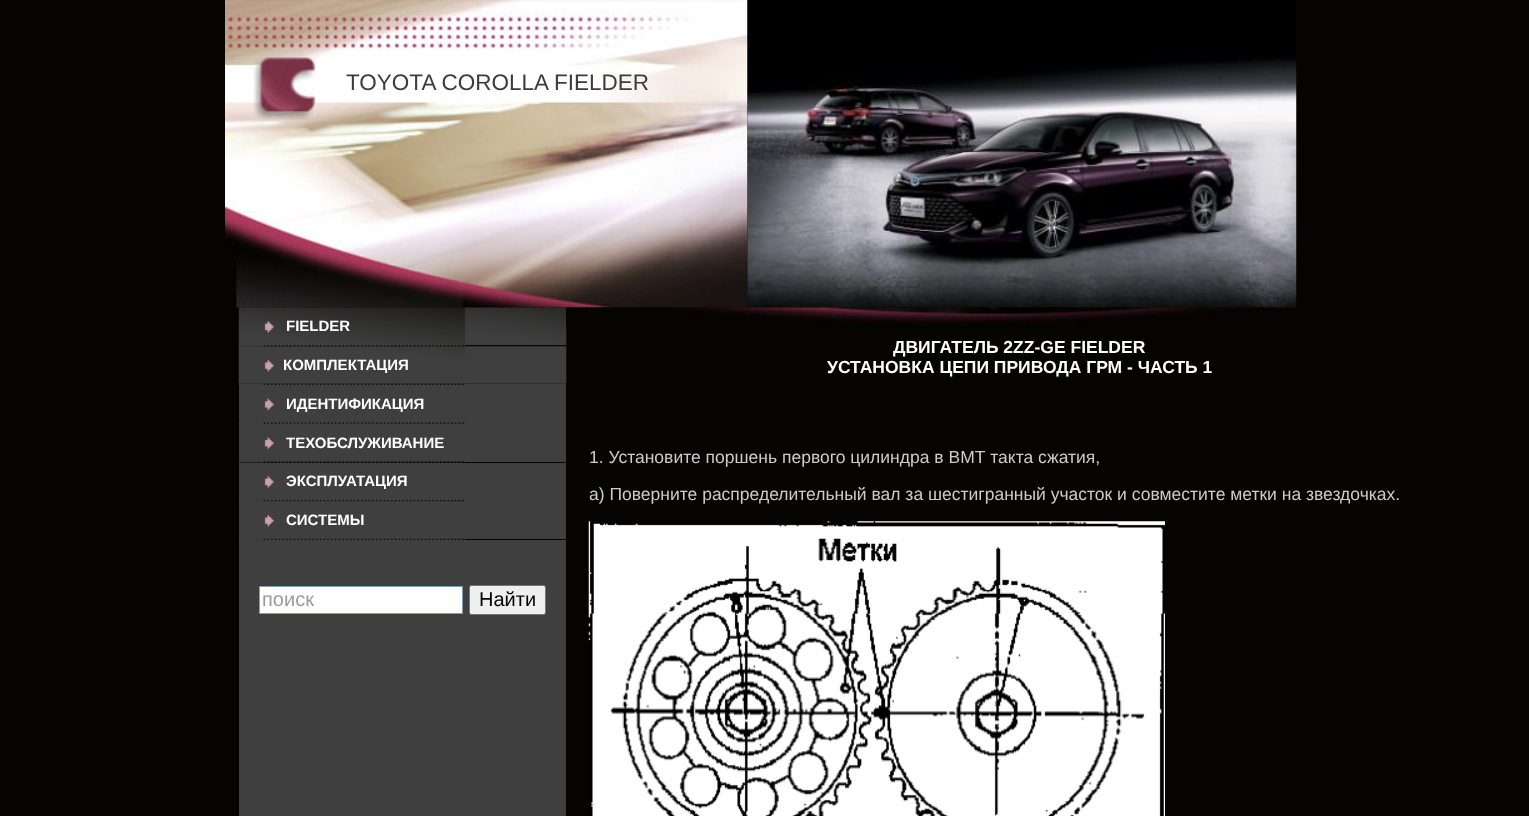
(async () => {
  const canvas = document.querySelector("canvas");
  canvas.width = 1529;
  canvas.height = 816;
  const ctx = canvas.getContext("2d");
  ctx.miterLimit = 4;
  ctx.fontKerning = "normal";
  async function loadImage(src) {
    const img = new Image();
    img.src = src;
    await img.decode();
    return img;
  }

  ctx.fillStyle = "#050402";
  ctx.fillRect(0, 0, 1529, 816);
  ctx.drawImage(await loadImage("img/1.png"), 225, 0, 523, 308);
  ctx.drawImage(await loadImage("img/2.png"), 253, 57, 63, 65);
  ctx.drawImage(await loadImage("img/3.png"), 747, 0, 550, 308);
  ctx.drawImage(await loadImage("img/4.png"), 238, 307, 329, 38);
  ctx.drawImage(await loadImage("img/5.png"), 264, 321, 10, 12);
  ctx.drawImage(await loadImage("img/7.png"), 238, 346, 329, 38);
  ctx.drawImage(await loadImage("img/6.png"), 238, 345, 227, 2);
  ctx.drawImage(await loadImage("img/8.png"), 264, 359, 10, 13);
  ctx.fillStyle = "#3f3f3f";
  ctx.fillRect(465, 384, 101, 1);
  ctx.drawImage(await loadImage("img/9.png"), 238, 383, 227, 2);
  ctx.fillRect(239, 385, 327, 77);
  ctx.drawImage(await loadImage("img/10.png"), 264, 398, 10, 13);
  ctx.drawImage(await loadImage("img/11.png"), 238, 422, 227, 2);
  ctx.drawImage(await loadImage("img/12.png"), 264, 437, 10, 12);
  ctx.drawImage(await loadImage("img/13.png"), 238, 461, 227, 2);
  ctx.fillRect(239, 463, 327, 37);
  ctx.drawImage(await loadImage("img/14.png"), 264, 476, 10, 12);
  ctx.fillRect(465, 500, 101, 1);
  ctx.fillRect(239, 501, 327, 38);
  ctx.drawImage(await loadImage("img/15.png"), 238, 500, 227, 2);
  ctx.drawImage(await loadImage("img/8.png"), 264, 514, 10, 13);
  ctx.drawImage(await loadImage("img/16.png"), 238, 538, 227, 2);
  ctx.fillRect(239, 540, 327, 276);
  ctx.fillStyle = "#ffffff";
  ctx.beginPath();
  ctx.rect(259.5, 586.5, 203, 27);
  ctx.fill();
  ctx.strokeStyle = "#7f9db9";
  ctx.stroke();
  ctx.fillStyle = "#efefef";
  ctx.beginPath();
  ctx.roundRect(469.5, 585.5, 76, 29, 2);
  ctx.fill();
  ctx.strokeStyle = "#767676";
  ctx.stroke();
  ctx.drawImage(await loadImage("img/17.png"), 566, 307, 700, 22);
  ctx.drawImage(await loadImage("img/18.png"), 588, 521, 577, 295);
  ctx.font = "22.5px Liberation Sans";
  ctx.fillStyle = "#3d3c3c";
  ctx.fillText("TOYOTA COROLLA FIELDER", 346, 90);
  ctx.font = "bold 15px Liberation Sans";
  ctx.fillStyle = "#ffffff";
  for (const [text, x, y] of [
    ["FIELDER", 286, 331],
    ["КОМПЛЕКТАЦИЯ", 283, 370],
    ["ИДЕНТИФИКАЦИЯ", 286, 409],
    ["ТЕХОБСЛУЖИВАНИЕ", 286, 448],
    ["ЭКСПЛУАТАЦИЯ", 286, 486],
    ["СИСТЕМЫ", 286, 525],
  ]) {
    ctx.fillText(text, x, y);
  }
  ctx.font = "20px Liberation Sans";
  ctx.fillStyle = "#999999";
  ctx.fillText("поиск", 262, 606);
  ctx.fillStyle = "#000000";
  ctx.fillText("Найти", 479, 606);
  ctx.font = "bold 17.5px Liberation Sans";
  ctx.fillStyle = "#ffffff";
  ctx.fillText("ДВИГАТЕЛЬ 2ZZ-GE FIELDER", 893, 353);
  ctx.fillText("УСТАНОВКА ЦЕПИ ПРИВОДА ГРМ - ЧАСТЬ 1", 827, 373);
  ctx.font = "17.5px Liberation Sans";
  ctx.fillStyle = "#cccccc";
  ctx.fillText("1. Установите поршень первого цилиндра в ВМТ такта сжатия,", 589, 463);
  ctx.fillText("а) Поверните распределительный вал за шестигранный участок и совместите метки на звездочках.", 589, 500);
})();
